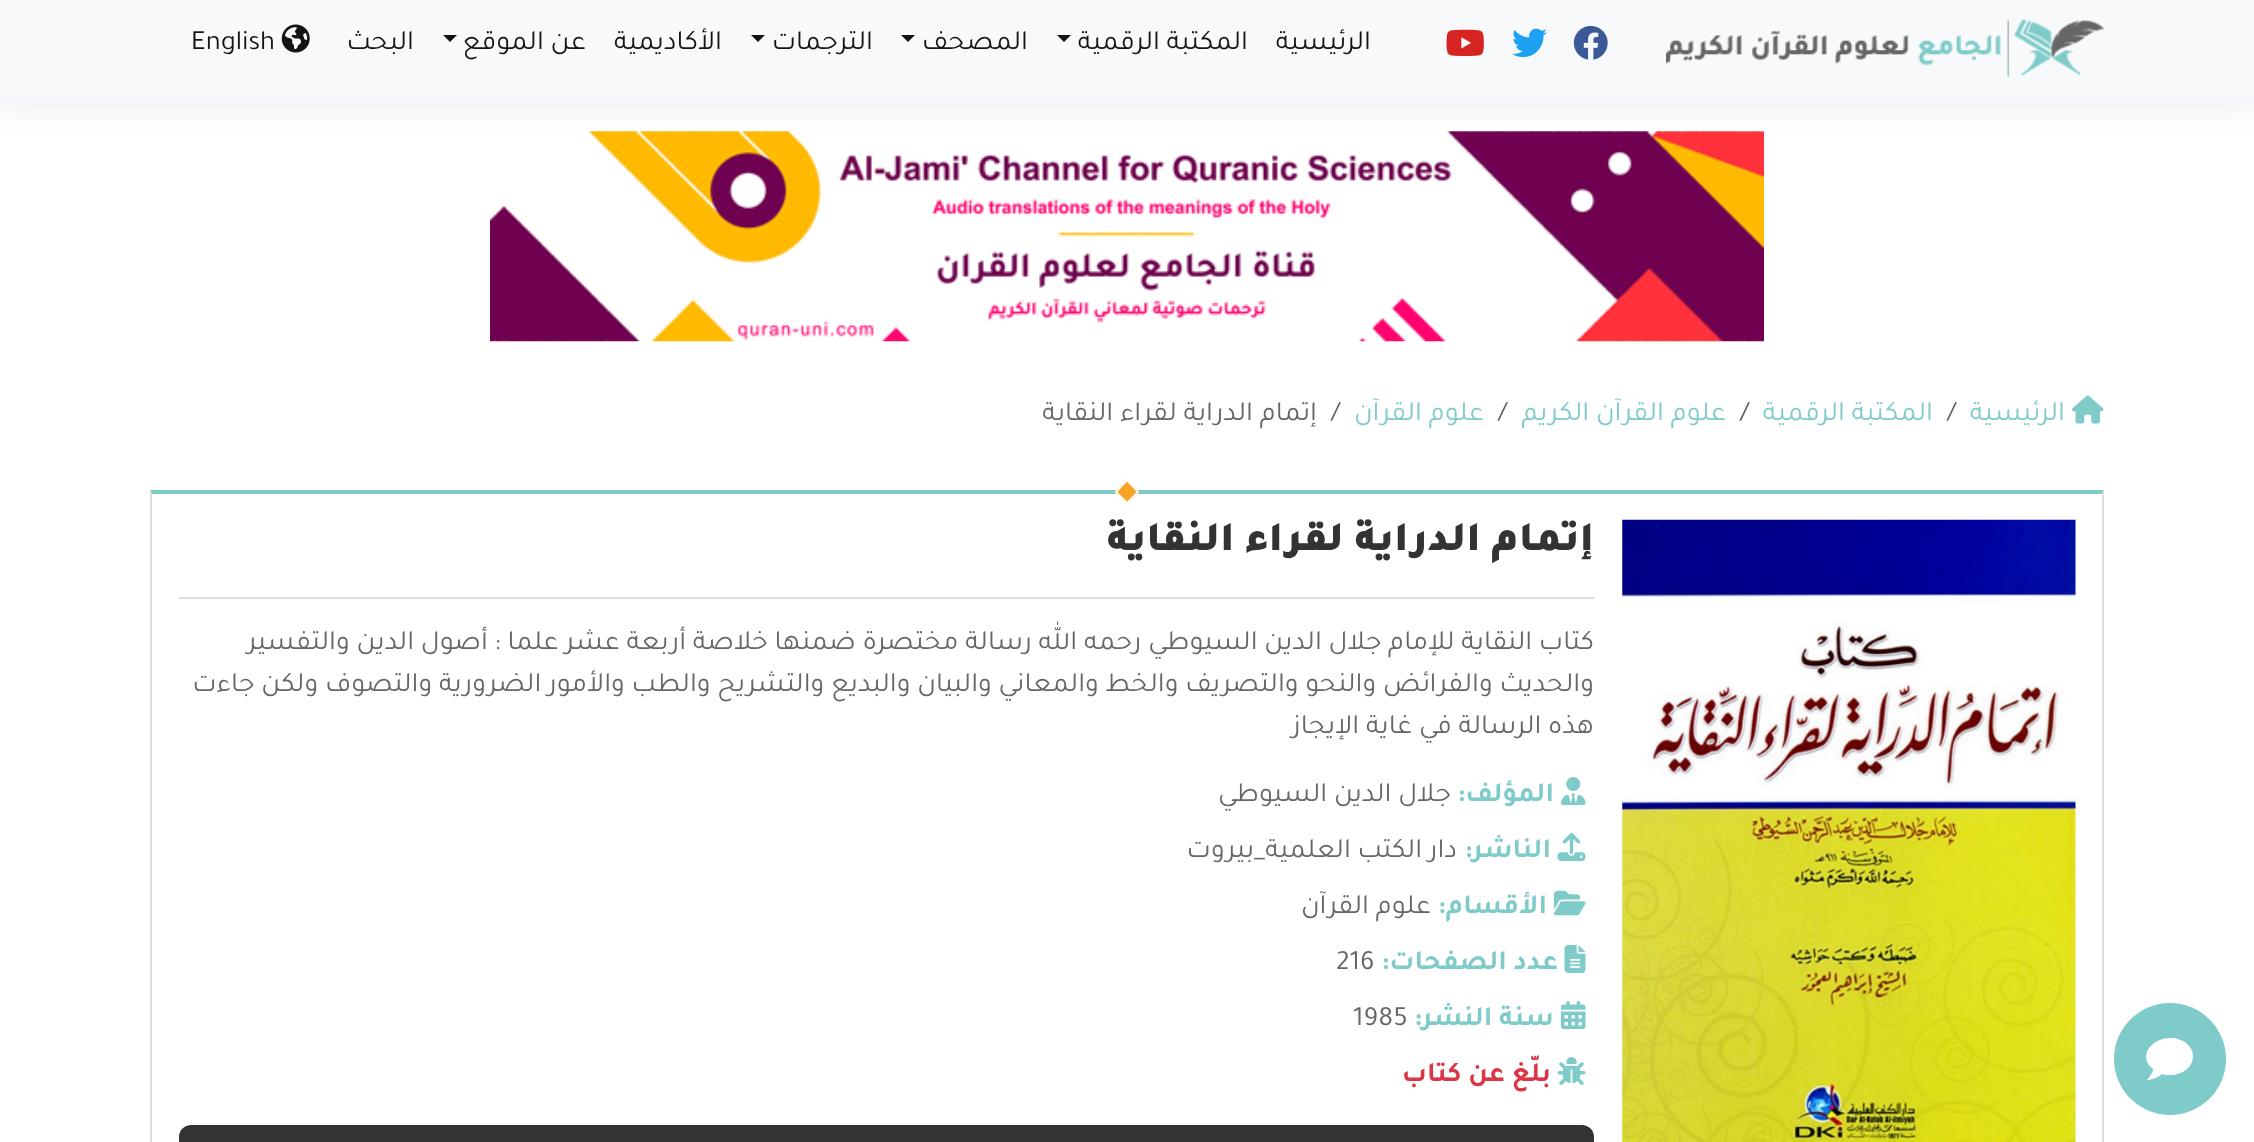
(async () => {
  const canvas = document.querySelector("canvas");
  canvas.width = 2254;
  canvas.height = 1142;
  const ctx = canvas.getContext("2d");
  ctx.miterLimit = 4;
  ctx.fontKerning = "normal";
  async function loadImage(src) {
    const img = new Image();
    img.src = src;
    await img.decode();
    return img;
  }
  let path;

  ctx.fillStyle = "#ffffff";
  ctx.fillRect(0, 0, 2254, 1142);
  ctx.fillStyle = "rgba(0, 0, 0, 0.09)";
  ctx.filter = "blur(17.5px)";
  ctx.beginPath();
  ctx.rect(0, 0, 2254, 103);
  ctx.fill();
  ctx.filter = "none";
  ctx.fillStyle = "#f8f9fa";
  ctx.fillRect(0, 0, 2254, 96);
  ctx.fillStyle = "#f6f7fa";
  ctx.fillRect(0, 96, 2254, 7);
  ctx.drawImage(await loadImage("img/1.png"), 1666, 19, 438, 58);
  ctx.drawImage(await loadImage("img/2.png"), 1573, 25, 35, 35);
  ctx.drawImage(await loadImage("img/3.png"), 1512, 28, 35, 30);
  ctx.drawImage(await loadImage("img/4.png"), 1446, 29, 38, 27);
  ctx.fillStyle = "#141414";
  path = new Path2D("M1057 35H1071L1064 42Z");
  ctx.fill(path);
  path = new Path2D("M901 35H915L908 42Z");
  ctx.fill(path);
  path = new Path2D("M751 35H765L758 42Z");
  ctx.fill(path);
  path = new Path2D("M443 35H457L450 42Z");
  ctx.fill(path);
  ctx.drawImage(await loadImage("img/5.png"), 281, 24, 29, 29);
  ctx.drawImage(await loadImage("img/6.png"), 490, 131, 1274, 211);
  ctx.drawImage(await loadImage("img/7.png"), 2072, 395, 32, 29);
  ctx.fillStyle = "#7fcbc9";
  ctx.beginPath();
  ctx.arc(2170, 1059, 56, 0, Math.PI * 2);
  ctx.fill();
  ctx.fillStyle = "#ffffff";
  path = new Path2D("M2170 1038C2183 1038 2193 1046 2193 1056C2193 1067 2183 1075 2170 1075C2167 1075 2164 1075 2162 1074C2155 1080 2147 1080 2147 1080C2152 1074 2153 1071 2153 1069C2137 1056 2152 1038 2170 1038");
  ctx.fill(path);
  ctx.fillStyle = "#7fcbc9";
  path = new Path2D("M150 490H2104L2102 494H152Z");
  ctx.fill(path);
  ctx.fillStyle = "#dddddd";
  path = new Path2D("M2104 490V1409L2102 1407V494Z");
  ctx.fill(path);
  path = new Path2D("M150 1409V490L152 494V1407Z");
  ctx.fill(path);
  ctx.fillStyle = "#f7a426";
  path = new Path2D("M1127 479.5L1139.5 492L1127 504L1114.5 492Z");
  ctx.fill(path);
  path = new Path2D("M1127 480.5L1138 492L1127 503L1116 492Z");
  ctx.strokeStyle = "#ffffff";
  ctx.lineWidth = 1.8;
  ctx.stroke(path);
  ctx.drawImage(await loadImage("img/8.png"), 1622, 519, 454, 623);
  ctx.fillStyle = "#dddddd";
  ctx.fillRect(179, 597, 1415, 2);
  ctx.drawImage(await loadImage("img/9.png"), 1561, 777, 25, 28);
  ctx.drawImage(await loadImage("img/10.png"), 1557, 833, 29, 28);
  ctx.drawImage(await loadImage("img/11.png"), 1554, 890, 32, 26);
  ctx.drawImage(await loadImage("img/12.png"), 1564, 945, 22, 28);
  ctx.drawImage(await loadImage("img/13.png"), 1561, 1001, 25, 28);
  ctx.drawImage(await loadImage("img/14.png"), 1557, 1057, 29, 28);
  ctx.fillStyle = "#333333";
  ctx.beginPath();
  ctx.roundRect(179, 1125, 1415, 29, 12);
  ctx.fill();
  ctx.direction = "rtl";
  ctx.font = "28px Tajawal";
  ctx.fillStyle = "#141414";
  for (const [text, x, y] of [
    ["الرئيسية", 1371, 49],
    ["المكتبة الرقمية", 1248, 49],
    ["المصحف", 1028, 49],
    ["الترجمات", 873, 49],
    ["الأكاديمية", 722, 49],
    ["عن الموقع", 586, 49],
    ["البحث", 414, 49],
  ]) {
    ctx.fillText(text, x, y);
  }
  ctx.direction = "ltr";
  ctx.fillText("English", 191, 49);
  ctx.direction = "rtl";
  ctx.fillStyle = "#7fcbc9";
  ctx.fillText("الرئيسية", 2065, 420);
  ctx.direction = "ltr";
  ctx.fillStyle = "#595c5f";
  ctx.fillText("/", 1947, 420);
  ctx.direction = "rtl";
  ctx.fillStyle = "#7fcbc9";
  ctx.fillText("المكتبة الرقمية", 1933, 420);
  ctx.direction = "ltr";
  ctx.fillStyle = "#595c5f";
  ctx.fillText("/", 1740, 420);
  ctx.direction = "rtl";
  ctx.fillStyle = "#7fcbc9";
  ctx.fillText("علوم القرآن الكريم", 1726, 420);
  ctx.direction = "ltr";
  ctx.fillStyle = "#595c5f";
  ctx.fillText("/", 1498, 420);
  ctx.direction = "rtl";
  ctx.fillStyle = "#7fcbc9";
  ctx.fillText("علوم القرآن", 1484, 420);
  ctx.direction = "ltr";
  ctx.fillStyle = "#595c5f";
  ctx.fillText("/", 1331, 420);
  ctx.direction = "rtl";
  ctx.fillStyle = "#666666";
  ctx.fillText("إتمام الدراية لقراء النقاية", 1317, 420);
  ctx.font = "900 42px Tajawal";
  ctx.fillStyle = "#333333";
  ctx.fillText("إتمام الدراية لقراء النقاية", 1594, 550);
  ctx.font = "28px Tajawal";
  ctx.fillStyle = "#666666";
  for (const [text, x, y] of [
    ["كتاب النقاية للإمام جلال الدين السيوطي رحمه الله رسالة مختصرة ضمنها خلاصة أربعة عشر علما : أصول الدين والتفسير", 1594, 649],
    ["والحديث والفرائض والنحو والتصريف والخط والمعاني والبيان والبديع والتشريح والطب والأمور الضرورية والتصوف ولكن جاءت", 1594, 691],
    ["هذه الرسالة في غاية الإيجاز", 1594, 733],
  ]) {
    ctx.fillText(text, x, y);
  }
  ctx.font = "bold 28px Tajawal";
  ctx.fillStyle = "#7fcbc9";
  ctx.fillText("المؤلف:", 1554, 801);
  ctx.font = "28px Tajawal";
  ctx.fillStyle = "#666666";
  ctx.fillText("جلال الدين السيوطي", 1451, 801);
  ctx.font = "bold 28px Tajawal";
  ctx.fillStyle = "#7fcbc9";
  ctx.fillText("الناشر:", 1551, 857);
  ctx.font = "28px Tajawal";
  ctx.fillStyle = "#666666";
  ctx.fillText("دار الكتب العلمية_بيروت", 1457, 857);
  ctx.font = "bold 28px Tajawal";
  ctx.fillStyle = "#7fcbc9";
  ctx.fillText("الأقسام:", 1547, 913);
  ctx.font = "28px Tajawal";
  ctx.fillStyle = "#666666";
  ctx.fillText("علوم القرآن", 1431, 913);
  ctx.font = "bold 28px Tajawal";
  ctx.fillStyle = "#7fcbc9";
  ctx.fillText("عدد الصفحات:", 1558, 969);
  ctx.direction = "ltr";
  ctx.font = "28px Tajawal";
  ctx.fillStyle = "#666666";
  ctx.fillText("216", 1336, 969);
  ctx.direction = "rtl";
  ctx.font = "bold 28px Tajawal";
  ctx.fillStyle = "#7fcbc9";
  ctx.fillText("سنة النشر:", 1554, 1025);
  ctx.direction = "ltr";
  ctx.font = "28px Tajawal";
  ctx.fillStyle = "#666666";
  ctx.fillText("1985", 1353, 1025);
  ctx.direction = "rtl";
  ctx.font = "bold 28px Tajawal";
  ctx.fillStyle = "#dc3545";
  ctx.fillText("بلّغ عن كتاب", 1551, 1081);
})();
